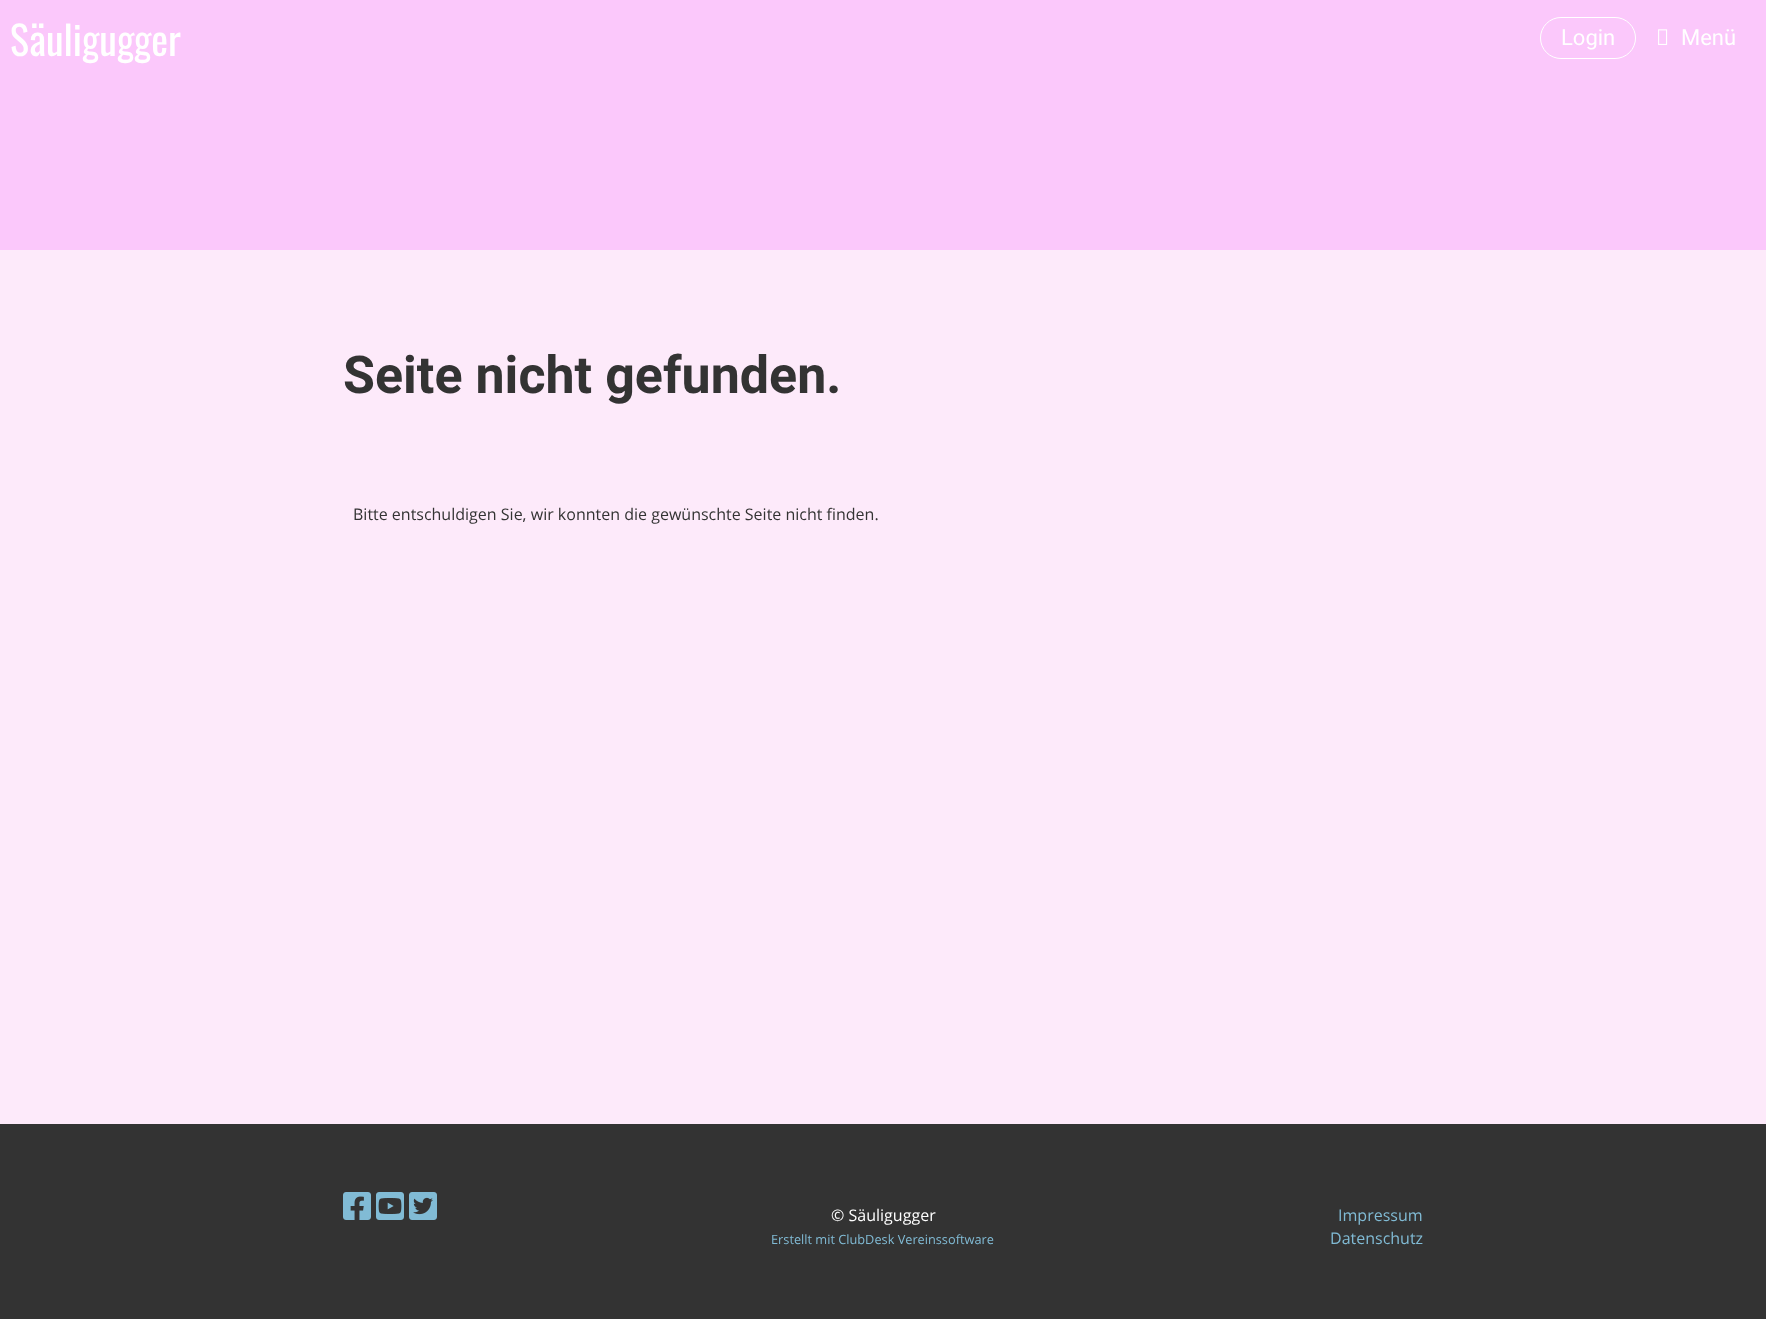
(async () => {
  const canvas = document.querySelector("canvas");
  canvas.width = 1766;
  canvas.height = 1319;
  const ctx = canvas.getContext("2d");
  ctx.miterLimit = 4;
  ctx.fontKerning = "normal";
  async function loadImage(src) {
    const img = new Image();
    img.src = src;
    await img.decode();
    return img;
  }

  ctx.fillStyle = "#fdeafa";
  ctx.fillRect(0, 0, 1766, 1319);
  ctx.fillStyle = "#fbc8fb";
  ctx.fillRect(0, 0, 1766, 250);
  ctx.beginPath();
  ctx.roundRect(1540.5, 17.5, 95, 41, 20.5);
  ctx.strokeStyle = "#ffffff";
  ctx.stroke();
  ctx.drawImage(await loadImage("img/1.png"), 1658, 29, 10, 16);
  ctx.fillStyle = "#333333";
  ctx.fillRect(0, 1124, 1766, 195);
  ctx.drawImage(await loadImage("img/2.png"), 343, 1192, 28, 28);
  ctx.drawImage(await loadImage("img/3.png"), 376, 1192, 28, 28);
  ctx.drawImage(await loadImage("img/4.png"), 409, 1192, 28, 28);
  ctx.font = "40px Oswald";
  ctx.fillStyle = "#ffffff";
  ctx.fillText("Säuligugger", 10, 56);
  ctx.font = "22px Roboto";
  ctx.fillText("Login", 1561, 45);
  ctx.fillText("Menü", 1681, 45);
  ctx.font = "bold 52px Roboto";
  ctx.fillStyle = "#333333";
  ctx.fillText("Seite nicht gefunden.", 343, 393);
  ctx.font = "16px Open Sans";
  ctx.fillText("Bitte entschuldigen Sie, wir konnten die gewünschte Seite nicht finden.", 353, 520);
  ctx.fillStyle = "#ffffff";
  ctx.fillText("© Säuligugger", 831, 1221);
  ctx.font = "12.75px Open Sans";
  ctx.fillStyle = "#81bbd5";
  ctx.fillText("Erstellt mit ClubDesk Vereinssoftware", 771, 1244);
  ctx.font = "16px Open Sans";
  ctx.fillText("Impressum", 1338, 1221);
  ctx.fillText("Datenschutz", 1330, 1244);
})();
